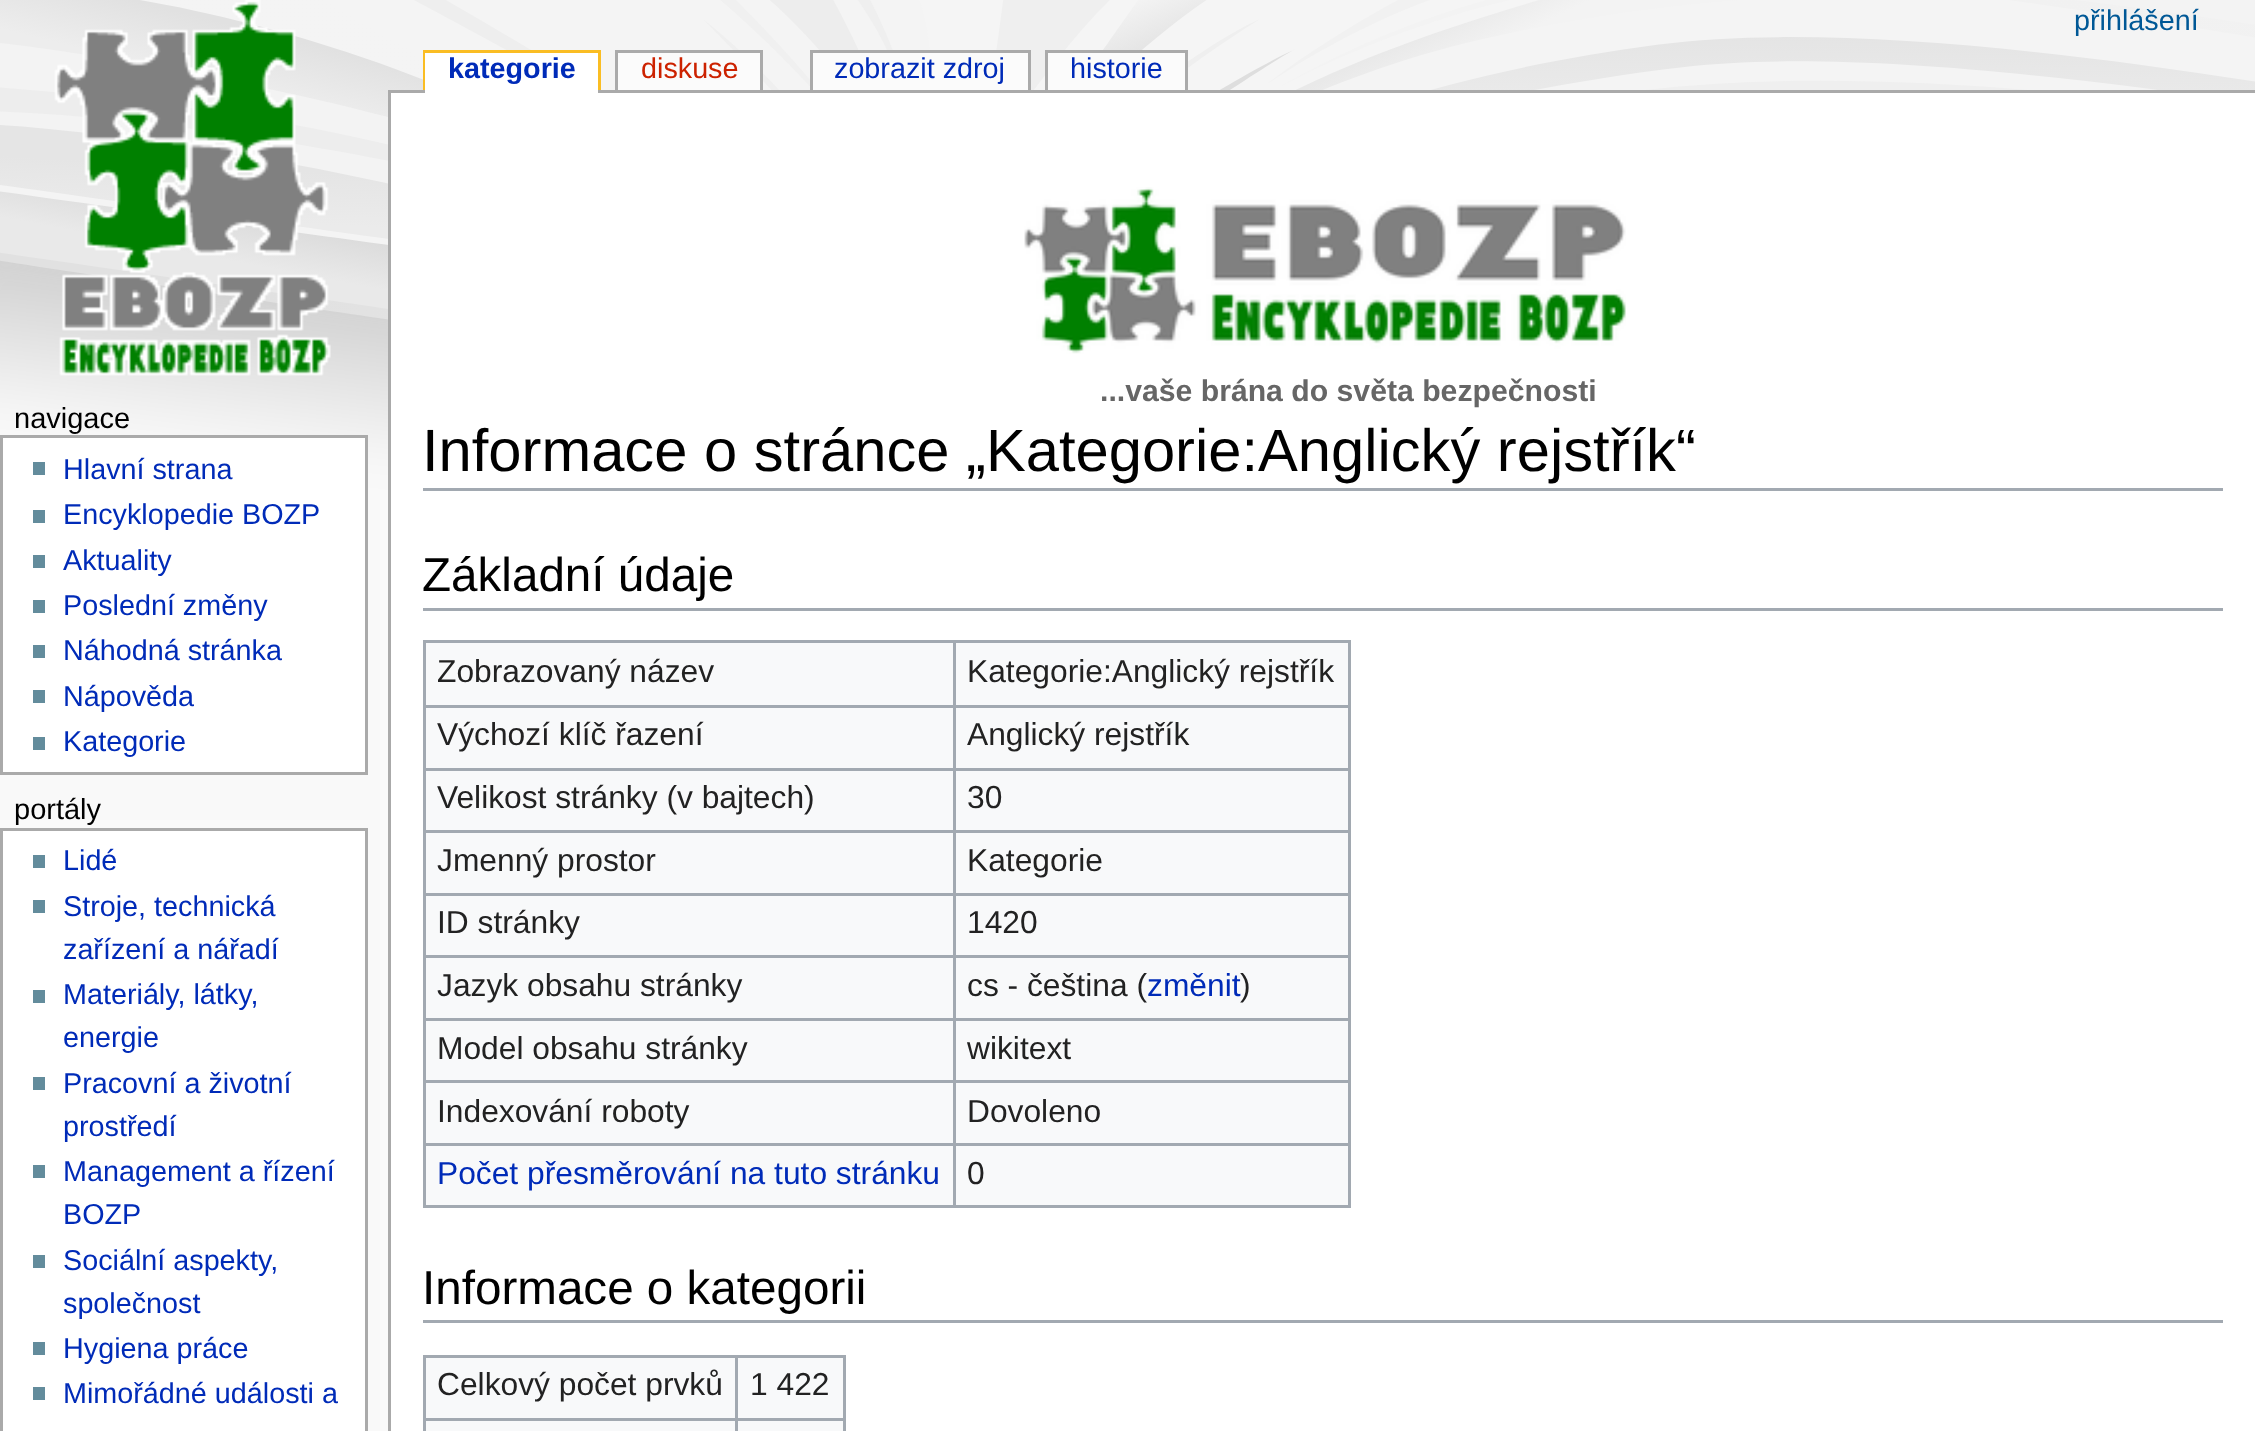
(async () => {
  const canvas = document.querySelector("canvas");
  canvas.width = 2255;
  canvas.height = 1431;
  const ctx = canvas.getContext("2d");
  ctx.miterLimit = 4;
  ctx.fontKerning = "normal";
  async function loadImage(src) {
    const img = new Image();
    img.src = src;
    await img.decode();
    return img;
  }

  ctx.fillStyle = "#f9f9f9";
  ctx.fillRect(0, 0, 2255, 1431);
  ctx.drawImage(await loadImage("img/1.png"), 0, 0, 2255, 525);
  ctx.drawImage(await loadImage("img/2.png"), 54, 0, 277, 376);
  for (const [x, y, w, h, color] of [
    [423, 50, 177, 3, "#fabd23"],
    [598, 50, 3, 40, "#fabd23"],
    [423, 50, 3, 40, "#fabd23"],
    [388, 90, 1867, 3, "#aaaaaa"],
    [425, 53, 173, 40, "#ffffff"],
    [615, 50, 148, 3, "#aaaaaa"],
    [760, 50, 3, 40, "#aaaaaa"],
    [615, 50, 3, 40, "#aaaaaa"],
    [618, 53, 142, 37, "#fbfbfb"],
    [810, 50, 220, 3, "#aaaaaa"],
    [1028, 50, 3, 40, "#aaaaaa"],
    [810, 50, 3, 40, "#aaaaaa"],
    [813, 53, 215, 37, "#fbfbfb"],
    [1045, 50, 143, 3, "#aaaaaa"],
    [1185, 50, 3, 40, "#aaaaaa"],
    [1045, 50, 3, 40, "#aaaaaa"],
    [1048, 53, 137, 37, "#fbfbfb"],
  ]) {
    ctx.fillStyle = color;
    ctx.fillRect(x, y, w, h);
  }
  ctx.fillStyle = "#ffffff";
  ctx.beginPath();
  ctx.rect(1.5, 436.5, 365, 337);
  ctx.fill();
  ctx.strokeStyle = "#aaaaaa";
  ctx.lineWidth = 3;
  ctx.stroke();
  for (const [x, y, w, h, color] of [
    [33, 462, 12, 13, "#638c9c"],
    [33, 510, 12, 13, "#638c9c"],
    [33, 555, 12, 13, "#638c9c"],
    [33, 600, 12, 13, "#638c9c"],
    [33, 645, 12, 13, "#638c9c"],
    [33, 690, 12, 13, "#638c9c"],
    [33, 737, 12, 13, "#638c9c"],
  ]) {
    ctx.fillStyle = color;
    ctx.fillRect(x, y, w, h);
  }
  ctx.fillStyle = "#ffffff";
  ctx.beginPath();
  ctx.rect(1.5, 829.5, 365, 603);
  ctx.fill();
  ctx.stroke();
  for (const [x, y, w, h, color] of [
    [33, 855, 12, 13, "#638c9c"],
    [33, 900, 12, 13, "#638c9c"],
    [33, 990, 12, 13, "#638c9c"],
    [33, 1077, 12, 13, "#638c9c"],
    [33, 1165, 12, 13, "#638c9c"],
    [33, 1255, 12, 13, "#638c9c"],
    [33, 1342, 12, 13, "#638c9c"],
    [33, 1387, 12, 13, "#638c9c"],
    [391, 93, 1864, 1338, "#ffffff"],
    [388, 90, 3, 1341, "#aaaaaa"],
  ]) {
    ctx.fillStyle = color;
    ctx.fillRect(x, y, w, h);
  }
  ctx.drawImage(await loadImage("img/3.png"), 1024, 187, 602, 167);
  for (const [x, y, w, h, color] of [
    [423, 488, 1800, 3, "#a2a9b1"],
    [423, 608, 1800, 3, "#a2a9b1"],
    [426, 643, 922, 562, "#f8f9fa"],
    [423, 640, 927, 3, "#a2a9b1"],
    [1348, 640, 3, 568, "#a2a9b1"],
    [423, 1205, 927, 3, "#a2a9b1"],
    [423, 640, 3, 568, "#a2a9b1"],
    [953, 705, 397, 3, "#a2a9b1"],
    [953, 768, 397, 3, "#a2a9b1"],
    [953, 830, 397, 3, "#a2a9b1"],
    [953, 893, 397, 3, "#a2a9b1"],
    [953, 955, 397, 3, "#a2a9b1"],
    [953, 1018, 397, 3, "#a2a9b1"],
    [953, 1080, 397, 3, "#a2a9b1"],
    [953, 1143, 397, 3, "#a2a9b1"],
    [953, 1143, 3, 65, "#a2a9b1"],
    [423, 1143, 532, 3, "#a2a9b1"],
    [953, 1080, 3, 65, "#a2a9b1"],
    [423, 1080, 532, 3, "#a2a9b1"],
    [953, 1018, 3, 65, "#a2a9b1"],
    [423, 1018, 532, 3, "#a2a9b1"],
    [953, 955, 3, 65, "#a2a9b1"],
    [423, 955, 532, 3, "#a2a9b1"],
    [953, 893, 3, 65, "#a2a9b1"],
    [423, 893, 532, 3, "#a2a9b1"],
    [953, 830, 3, 65, "#a2a9b1"],
    [423, 830, 532, 3, "#a2a9b1"],
    [953, 768, 3, 65, "#a2a9b1"],
    [423, 768, 532, 3, "#a2a9b1"],
    [953, 705, 3, 65, "#a2a9b1"],
    [423, 705, 532, 3, "#a2a9b1"],
    [953, 640, 3, 68, "#a2a9b1"],
    [423, 1320, 1800, 3, "#a2a9b1"],
    [426, 1358, 417, 73, "#f8f9fa"],
    [423, 1355, 422, 3, "#a2a9b1"],
    [843, 1355, 3, 76, "#a2a9b1"],
    [423, 1355, 3, 76, "#a2a9b1"],
    [735, 1418, 110, 3, "#a2a9b1"],
    [735, 1418, 3, 13, "#a2a9b1"],
    [423, 1418, 315, 3, "#a2a9b1"],
    [735, 1355, 3, 65, "#a2a9b1"],
  ]) {
    ctx.fillStyle = color;
    ctx.fillRect(x, y, w, h);
  }
  ctx.font = "28.75px Liberation Sans";
  ctx.fillStyle = "#005896";
  ctx.fillText("přihlášení", 2074, 30);
  ctx.font = "bold 28.75px Liberation Sans";
  ctx.fillStyle = "#002bb8";
  ctx.fillText("kategorie", 448, 78);
  ctx.font = "28.75px Liberation Sans";
  ctx.fillStyle = "#cc2200";
  ctx.fillText("diskuse", 641, 78);
  ctx.fillStyle = "#002bb8";
  ctx.fillText("zobrazit zdroj", 834, 78);
  ctx.fillText("historie", 1070, 78);
  ctx.font = "29px Liberation Sans";
  ctx.fillStyle = "#000000";
  ctx.fillText("navigace", 14, 428);
  ctx.font = "28.75px Liberation Sans";
  ctx.fillStyle = "#002bb8";
  for (const [text, x, y] of [
    ["Hlavní strana", 63, 479],
    ["Encyklopedie BOZP", 63, 524],
    ["Aktuality", 63, 570],
    ["Poslední změny", 63, 615],
    ["Náhodná stránka", 63, 660],
    ["Nápověda", 63, 706],
    ["Kategorie", 63, 751],
  ]) {
    ctx.fillText(text, x, y);
  }
  ctx.font = "29px Liberation Sans";
  ctx.fillStyle = "#000000";
  ctx.fillText("portály", 14, 819);
  ctx.font = "28.75px Liberation Sans";
  ctx.fillStyle = "#002bb8";
  for (const [text, x, y] of [
    ["Lidé", 63, 870],
    ["Stroje, technická", 63, 916],
    ["zařízení a nářadí", 63, 959],
    ["Materiály, látky,", 63, 1004],
    ["energie", 63, 1047],
    ["Pracovní a životní", 63, 1093],
    ["prostředí", 63, 1136],
    ["Management a řízení", 63, 1181],
    ["BOZP", 63, 1224],
    ["Sociální aspekty,", 63, 1270],
    ["společnost", 63, 1313],
    ["Hygiena práce", 63, 1358],
    ["Mimořádné události a", 63, 1403],
  ]) {
    ctx.fillText(text, x, y);
  }
  ctx.font = "bold 30.2px Liberation Sans";
  ctx.fillStyle = "#666666";
  ctx.fillText("...vaše brána do světa bezpečnosti", 1100, 401);
  ctx.font = "59.7px Liberation Sans";
  ctx.fillStyle = "#000000";
  ctx.fillText("Informace o stránce „Kategorie:Anglický rejstřík“", 422, 471);
  ctx.font = "47.6px Liberation Sans";
  ctx.fillText("Základní údaje", 422, 591);
  ctx.font = "31.75px Liberation Sans";
  ctx.fillStyle = "#222222";
  for (const [text, x, y] of [
    ["Zobrazovaný název", 437, 682],
    ["Kategorie:Anglický rejstřík", 967, 682],
    ["Výchozí klíč řazení", 437, 745],
    ["Anglický rejstřík", 967, 745],
    ["Velikost stránky (v bajtech)", 437, 808],
    ["30", 967, 808],
    ["Jmenný prostor", 437, 871],
    ["Kategorie", 967, 871],
    ["ID stránky", 437, 933],
    ["1420", 967, 933],
    ["Jazyk obsahu stránky", 437, 996],
    ["cs - čeština (", 967, 996],
  ]) {
    ctx.fillText(text, x, y);
  }
  ctx.fillStyle = "#002bb8";
  ctx.fillText("změnit", 1147, 996);
  ctx.fillStyle = "#222222";
  for (const [text, x, y] of [
    [")", 1240, 996],
    ["Model obsahu stránky", 437, 1059],
    ["wikitext", 967, 1059],
    ["Indexování roboty", 437, 1122],
    ["Dovoleno", 967, 1122],
  ]) {
    ctx.fillText(text, x, y);
  }
  ctx.fillStyle = "#002bb8";
  ctx.fillText("Počet přesměrování na tuto stránku", 437, 1184);
  ctx.fillStyle = "#222222";
  ctx.fillText("0", 967, 1184);
  ctx.font = "47.6px Liberation Sans";
  ctx.fillStyle = "#000000";
  ctx.fillText("Informace o kategorii", 422, 1304);
  ctx.font = "31.75px Liberation Sans";
  ctx.fillStyle = "#222222";
  ctx.fillText("Celkový počet prvků", 437, 1395);
  ctx.fillText("1 422", 750, 1395);
})();
